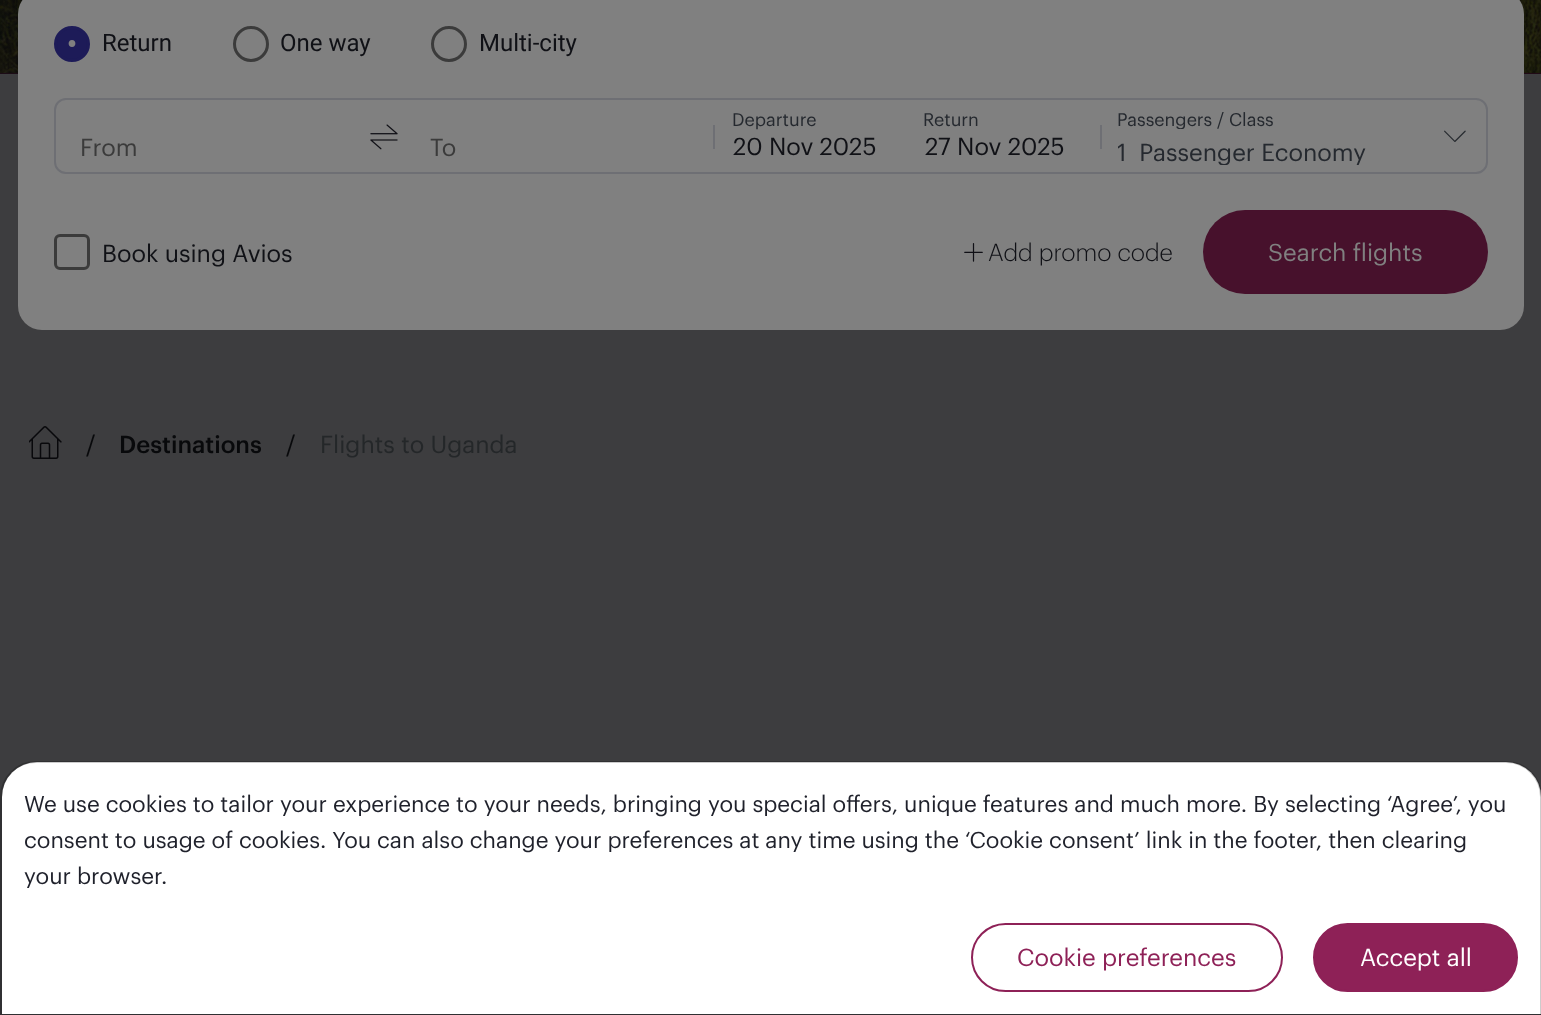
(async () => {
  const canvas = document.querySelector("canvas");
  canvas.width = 1541;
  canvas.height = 1015;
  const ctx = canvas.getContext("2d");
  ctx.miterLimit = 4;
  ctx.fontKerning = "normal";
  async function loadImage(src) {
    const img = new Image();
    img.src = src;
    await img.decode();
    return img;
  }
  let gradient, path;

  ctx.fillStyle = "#3d3d3f";
  ctx.fillRect(0, 0, 1541, 1015);
  ctx.fillStyle = "#240916";
  ctx.fillRect(0, 72, 1541, 2);
  ctx.drawImage(await loadImage("img/1.png"), 0, 0, 1541, 73);
  gradient = ctx.createLinearGradient(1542, -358, -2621, -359);
  gradient.addColorStop(0, "rgba(16, 17, 22, 0.2)");
  gradient.addColorStop(1, "rgba(16, 17, 22, 0.8)");
  ctx.fillStyle = gradient;
  ctx.fillRect(0, 0, 1541, 74);
  ctx.fillStyle = "#808080";
  ctx.beginPath();
  ctx.roundRect(18, -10, 1506, 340, 24);
  ctx.fill();
  ctx.fillStyle = "#1d1b58";
  ctx.beginPath();
  ctx.arc(72, 44, 16.5, 0, Math.PI * 2);
  ctx.fill();
  ctx.strokeStyle = "#1d1b58";
  ctx.lineWidth = 3;
  ctx.stroke();
  ctx.fillStyle = "#808080";
  path = new Path2D("M72 47C67.5 47 67.5 40 72 40C76.5 40 76.5 47 72 47Z");
  ctx.fill(path);
  ctx.beginPath();
  ctx.arc(251, 44, 16.5, 0, Math.PI * 2);
  ctx.strokeStyle = "#3b3b3b";
  ctx.stroke();
  ctx.beginPath();
  ctx.arc(449, 44, 16.5, 0, Math.PI * 2);
  ctx.stroke();
  ctx.drawImage(await loadImage("img/3.png"), 1444, 130, 22, 12);
  ctx.beginPath();
  ctx.roundRect(55, 99, 1432, 74, 11);
  ctx.strokeStyle = "#6e6f74";
  ctx.lineWidth = 2;
  ctx.stroke();
  ctx.drawImage(await loadImage("img/2.png"), 370, 124, 28, 26);
  ctx.fillStyle = "#6e6f74";
  ctx.fillRect(713, 125, 2, 24);
  ctx.fillRect(1100, 125, 2, 24);
  ctx.beginPath();
  ctx.roundRect(55.5, 235.5, 33, 33, 4.5);
  ctx.strokeStyle = "#3b3b3b";
  ctx.lineWidth = 3;
  ctx.stroke();
  ctx.drawImage(await loadImage("img/4.png"), 964, 243, 19, 19);
  ctx.fillStyle = "#47112c";
  ctx.beginPath();
  ctx.roundRect(1203, 210, 285, 84, 42);
  ctx.fill();
  ctx.drawImage(await loadImage("img/5.png"), 29, 426, 33, 33);
  ctx.fillStyle = "#ffffff";
  ctx.beginPath();
  ctx.roundRect(2, 762, 1539, 252, [35, 35, 0, 0]);
  ctx.fill();
  path = new Path2D("M36 762H1506C1525.5 762 1541 777.5 1541 797V1015H1V797C1 777.5 16.5 762 36 762Z");
  ctx.strokeStyle = "rgba(0, 0, 0, 0.2)";
  ctx.lineWidth = 2;
  ctx.stroke(path);
  ctx.beginPath();
  ctx.roundRect(972, 924, 310, 67, 33.5);
  ctx.strokeStyle = "#8e2157";
  ctx.stroke();
  ctx.fillStyle = "#8e2157";
  ctx.beginPath();
  ctx.roundRect(1314, 924, 203, 67, 33.5);
  ctx.fill();
  ctx.stroke();
  ctx.font = "24px Roboto";
  ctx.fillStyle = "#101116";
  for (const [text, x, y] of [
    ["Return", 102, 51],
    ["One way", 280, 51],
    ["Multi-city", 479, 51],
  ]) {
    ctx.fillText(text, x, y);
  }
  ctx.font = "24px Graphik";
  ctx.fillStyle = "#3b3b3b";
  ctx.fillText("From", 80, 156);
  ctx.fillText("To", 430, 156);
  ctx.font = "18px Graphik";
  ctx.fillStyle = "#25292f";
  ctx.fillText("Departure", 732, 126);
  ctx.font = "24px Graphik";
  ctx.fillStyle = "#101116";
  ctx.fillText("20 Nov 2025", 733, 155);
  ctx.font = "18px Graphik";
  ctx.fillStyle = "#25292f";
  ctx.fillText("Return", 923, 126);
  ctx.font = "24px Graphik";
  ctx.fillStyle = "#101116";
  ctx.fillText("27 Nov 2025", 925, 155);
  ctx.save();
  ctx.beginPath();
  ctx.rect(1118, 110, 352, 19);
  ctx.clip();
  ctx.font = "18px Graphik";
  ctx.fillStyle = "#25292f";
  ctx.fillText("Passengers / Class", 1117, 126);
  ctx.restore();
  ctx.save();
  ctx.beginPath();
  ctx.rect(1118, 137, 352, 28);
  ctx.clip();
  ctx.fillStyle = "#25292f";
  ctx.fillText("1  Passenger Economy", 1117, 161);
  ctx.restore();
  ctx.fillText("Book using Avios", 102, 262);
  ctx.font = "300 24px Graphik";
  ctx.fillText("Add promo code", 988, 261);
  ctx.font = "24px Graphik";
  ctx.fillStyle = "#808080";
  ctx.fillText("Search flights", 1268, 261);
  ctx.fillStyle = "#08090b";
  ctx.fillText("/", 86, 453);
  ctx.font = "500 24px Graphik";
  ctx.fillText("Destinations", 119, 453);
  ctx.font = "24px Graphik";
  ctx.fillText("/", 286, 453);
  ctx.fillStyle = "#242729";
  ctx.fillText("Flights to Uganda", 320, 453);
  ctx.font = "22.5px Graphik";
  ctx.fillStyle = "#1f212b";
  for (const [text, x, y] of [
    ["We use cookies to tailor your experience to your needs, bringing you special offers, unique features and much more. By selecting ‘Agree’, you", 24, 812],
    ["consent to usage of cookies. You can also change your preferences at any time using the ‘Cookie consent’ link in the footer, then clearing", 24, 848],
    ["your browser.", 24, 884],
  ]) {
    ctx.fillText(text, x, y);
  }
  ctx.font = "24px Graphik";
  ctx.fillStyle = "#8e2157";
  ctx.fillText("Cookie preferences", 1017, 966);
  ctx.fillStyle = "#ffffff";
  ctx.fillText("Accept all", 1360, 966);
})();
